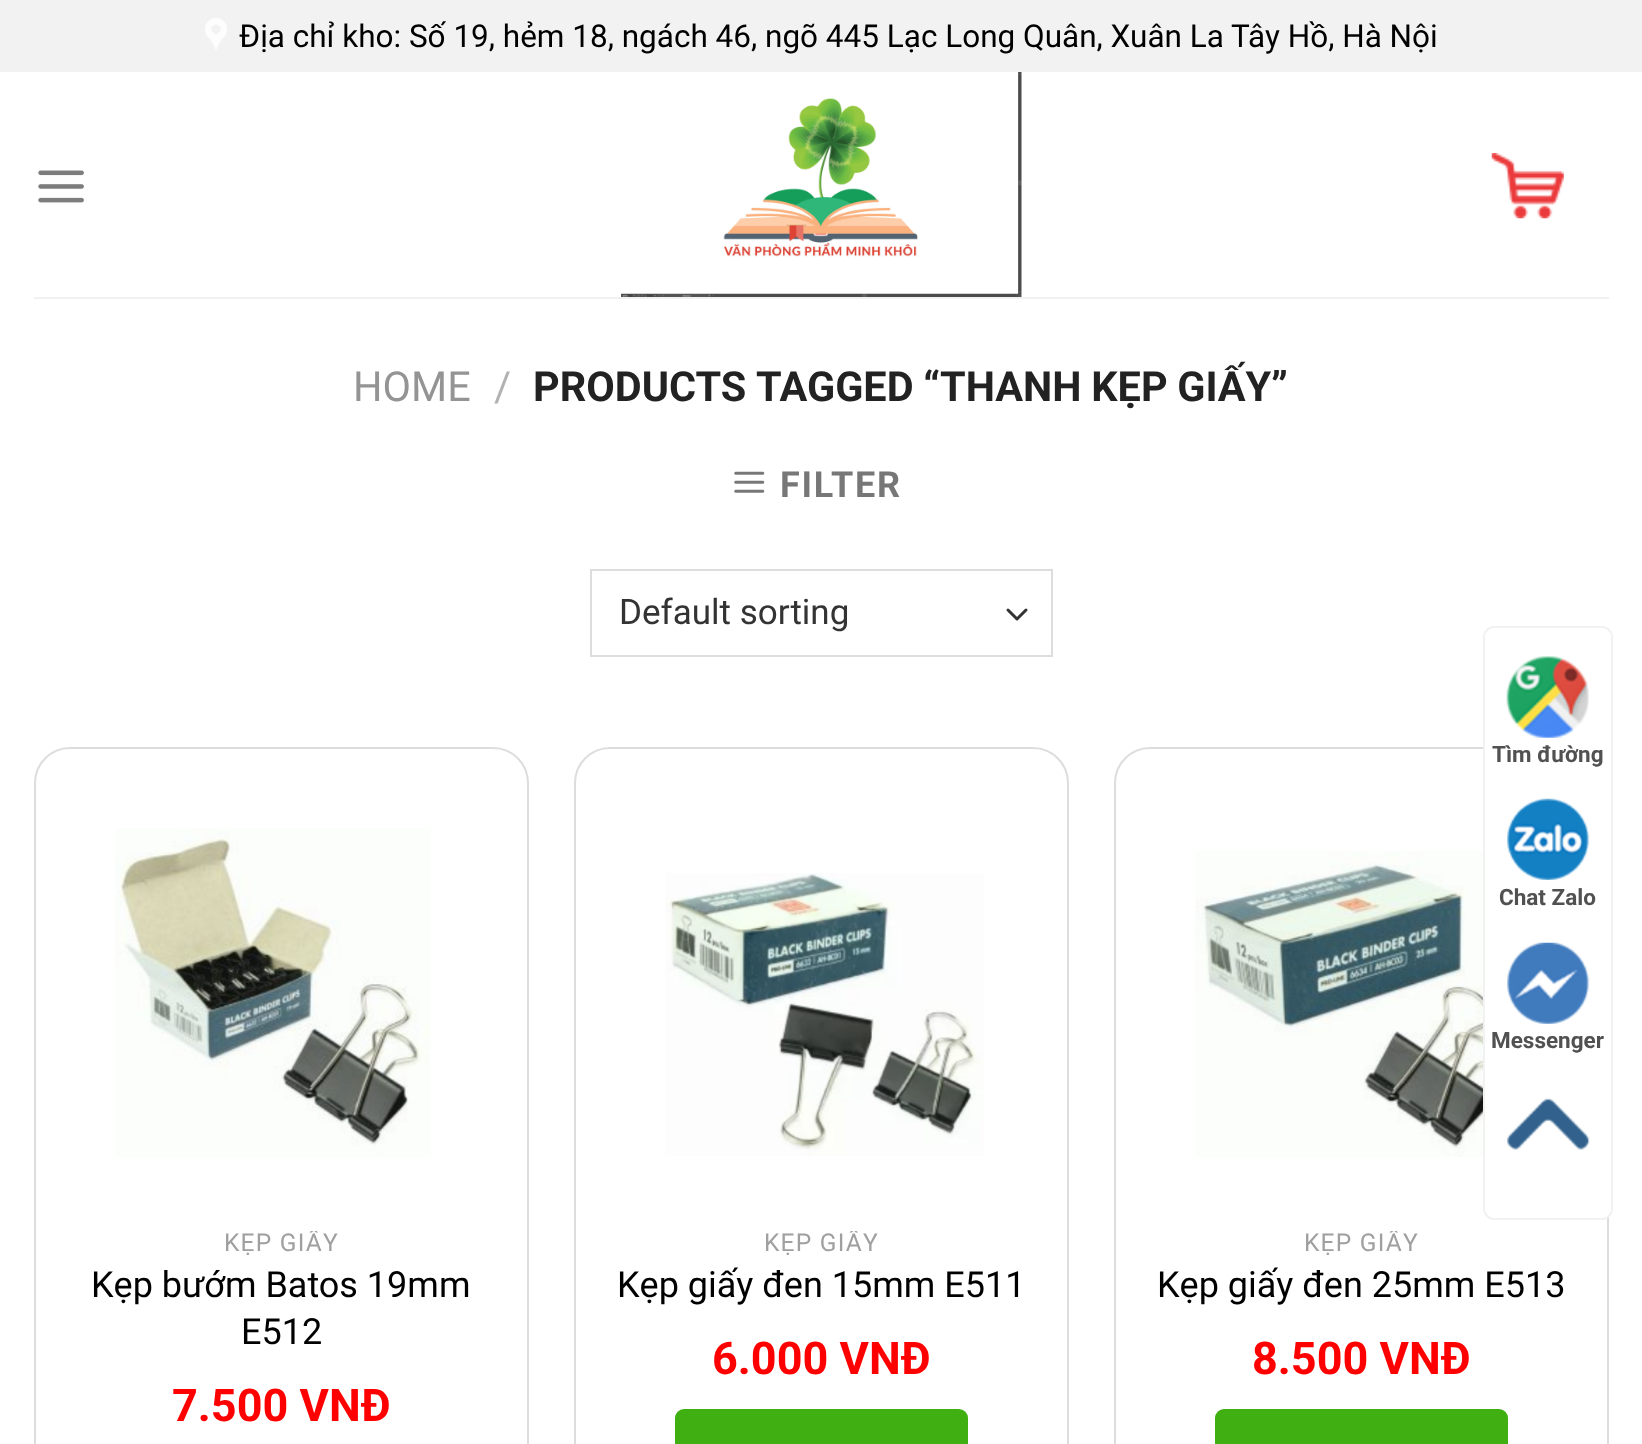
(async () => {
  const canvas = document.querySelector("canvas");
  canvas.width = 1642;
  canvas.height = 1444;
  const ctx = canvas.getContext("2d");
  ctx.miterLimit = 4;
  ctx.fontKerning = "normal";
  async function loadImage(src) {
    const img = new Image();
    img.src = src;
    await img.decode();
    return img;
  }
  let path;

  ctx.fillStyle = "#ffffff";
  ctx.fillRect(0, 0, 1642, 1444);
  ctx.fillStyle = "#f2f2f2";
  ctx.fillRect(0, 0, 1642, 72);
  ctx.drawImage(await loadImage("img/1.png"), 205, 18, 22, 32);
  ctx.drawImage(await loadImage("img/2.png"), 38, 170, 46, 33);
  ctx.drawImage(await loadImage("img/3.png"), 621, 72, 401, 225);
  ctx.drawImage(await loadImage("img/4.png"), 1491, 153, 73, 66);
  ctx.fillStyle = "#f1f1f1";
  ctx.fillRect(34, 297, 1575, 2);
  ctx.drawImage(await loadImage("img/5.png"), 734, 471, 31, 22);
  path = new Path2D("M1008 610L1017 619L1026 610");
  ctx.strokeStyle = "#333333";
  ctx.lineWidth = 3;
  ctx.lineCap = "round";
  ctx.lineJoin = "round";
  ctx.stroke(path);
  ctx.strokeStyle = "#dddddd";
  ctx.lineWidth = 2;
  ctx.lineJoin = "miter";
  ctx.strokeRect(591, 570, 461, 86);
  ctx.beginPath();
  ctx.roundRect(35, 748, 493, 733, 35);
  ctx.stroke();
  ctx.drawImage(await loadImage("img/6.png"), 115, 828, 316, 329);
  ctx.beginPath();
  ctx.roundRect(575, 748, 493, 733, 35);
  ctx.stroke();
  ctx.drawImage(await loadImage("img/7.png"), 665, 873, 319, 283);
  ctx.fillStyle = "#40af12";
  ctx.beginPath();
  ctx.roundRect(675, 1409, 293, 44, 9);
  ctx.fill();
  ctx.beginPath();
  ctx.roundRect(1115, 748, 493, 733, 35);
  ctx.stroke();
  ctx.drawImage(await loadImage("img/8.png"), 1195, 851, 288, 306);
  ctx.beginPath();
  ctx.roundRect(1215, 1409, 293, 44, 9);
  ctx.fill();
  ctx.fillStyle = "#ffffff";
  ctx.beginPath();
  ctx.roundRect(1484, 627, 128, 592, 10);
  ctx.fill();
  ctx.strokeStyle = "#f2f2f2";
  ctx.stroke();
  ctx.drawImage(await loadImage("img/9.png"), 1506, 656, 83, 82);
  ctx.drawImage(await loadImage("img/10.png"), 1507, 798, 83, 82);
  ctx.drawImage(await loadImage("img/11.png"), 1507, 942, 83, 82);
  ctx.drawImage(await loadImage("img/12.png"), 1507, 1098, 83, 52);
  ctx.font = "31.5px Roboto";
  ctx.fillStyle = "#000000";
  ctx.fillText("Địa chỉ kho: Số 19, hẻm 18, ngách 46, ngõ 445 Lạc Long Quân, Xuân La Tây Hồ, Hà Nội", 239, 47);
  ctx.font = "41.4px Roboto";
  ctx.fillStyle = "#949494";
  ctx.fillText("HOME", 353, 401);
  ctx.fillStyle = "#b2b2b2";
  ctx.fillText("/", 494, 401);
  ctx.wordSpacing = "-0.5px";
  ctx.font = "bold 41.4px Roboto";
  ctx.fillStyle = "#222222";
  ctx.fillText("PRODUCTS TAGGED “THANH KẸP GIẤY”", 533, 401);
  ctx.letterSpacing = "1.75px";
  ctx.wordSpacing = "0px";
  ctx.font = "bold 36px Roboto";
  ctx.fillStyle = "#777777";
  ctx.fillText("FILTER", 780, 497);
  ctx.letterSpacing = "0px";
  ctx.font = "35px Roboto";
  ctx.fillStyle = "#333333";
  ctx.fillText("Default sorting", 619, 624);
  ctx.save();
  ctx.beginPath();
  ctx.rect(72, 1231, 419, 29);
  ctx.clip();
  ctx.letterSpacing = "1.25px";
  ctx.font = "24.5px Roboto";
  ctx.fillStyle = "#a0a0a0";
  ctx.fillText("KẸP GIẤY", 224, 1251);
  ctx.restore();
  ctx.font = "36px Roboto";
  ctx.fillStyle = "#000000";
  ctx.fillText("Kẹp bướm Batos 19mm", 91, 1297);
  ctx.fillText("E512", 241, 1344);
  ctx.font = "bold 45px Roboto";
  ctx.fillStyle = "#ff0000";
  ctx.fillText("7.500 VNĐ", 172, 1421);
  ctx.save();
  ctx.beginPath();
  ctx.rect(612, 1231, 419, 29);
  ctx.clip();
  ctx.letterSpacing = "1.25px";
  ctx.font = "24.5px Roboto";
  ctx.fillStyle = "#a0a0a0";
  ctx.fillText("KẸP GIẤY", 764, 1251);
  ctx.restore();
  ctx.font = "36px Roboto";
  ctx.fillStyle = "#000000";
  ctx.fillText("Kẹp giấy đen 15mm E511", 617, 1297);
  ctx.font = "bold 45px Roboto";
  ctx.fillStyle = "#ff0000";
  ctx.fillText("6.000 VNĐ", 712, 1374);
  ctx.save();
  ctx.beginPath();
  ctx.rect(1152, 1231, 419, 29);
  ctx.clip();
  ctx.letterSpacing = "1.25px";
  ctx.font = "24.5px Roboto";
  ctx.fillStyle = "#a0a0a0";
  ctx.fillText("KẸP GIẤY", 1304, 1251);
  ctx.restore();
  ctx.font = "36px Roboto";
  ctx.fillStyle = "#000000";
  ctx.fillText("Kẹp giấy đen 25mm E513", 1157, 1297);
  ctx.font = "bold 45px Roboto";
  ctx.fillStyle = "#ff0000";
  ctx.fillText("8.500 VNĐ", 1252, 1374);
  ctx.font = "bold 22.5px Roboto";
  ctx.fillStyle = "#515151";
  for (const [text, x, y] of [
    ["Tìm đường", 1492, 762],
    ["Chat Zalo", 1499, 905],
    ["Messenger", 1491, 1048],
  ]) {
    ctx.fillText(text, x, y);
  }
})();
